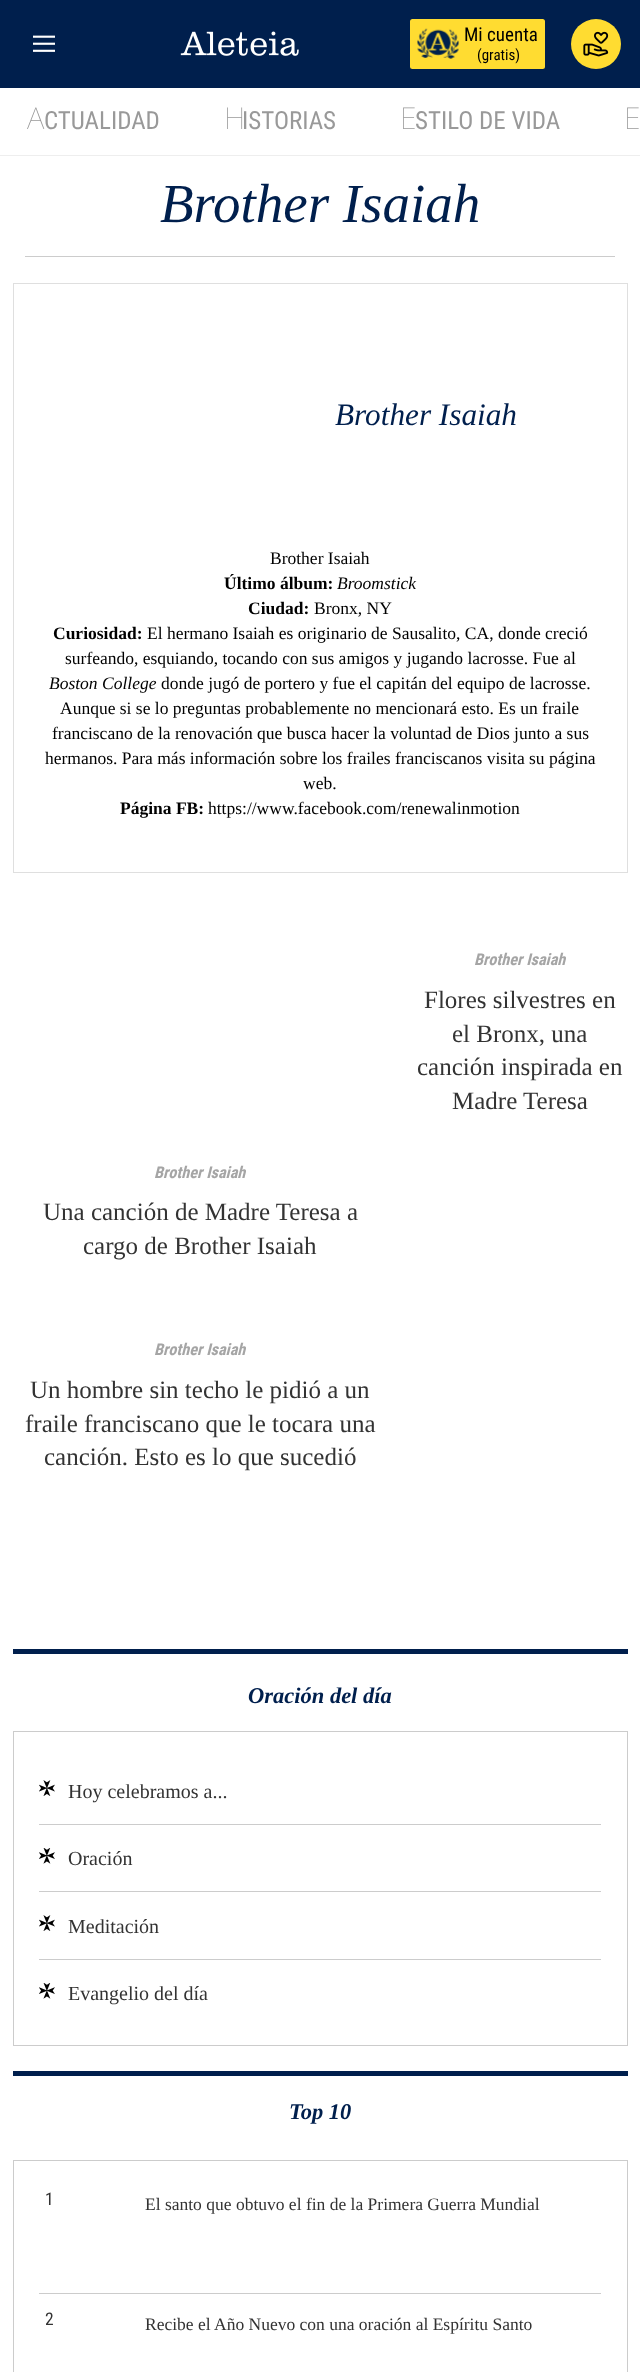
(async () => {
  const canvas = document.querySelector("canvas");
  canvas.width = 640;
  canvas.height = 2372;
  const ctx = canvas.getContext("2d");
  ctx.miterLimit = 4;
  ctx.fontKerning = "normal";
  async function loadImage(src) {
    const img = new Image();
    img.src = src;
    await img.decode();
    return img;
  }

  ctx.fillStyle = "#ffffff";
  ctx.fillRect(0, 0, 640, 2372);
  ctx.fillStyle = "#001f4d";
  ctx.fillRect(0, 0, 640, 88);
  ctx.drawImage(await loadImage("img/1.png"), 33, 35, 22, 17);
  ctx.drawImage(await loadImage("img/2.png"), 180, 31, 119, 25);
  ctx.fillStyle = "#ffdc31";
  ctx.beginPath();
  ctx.roundRect(410, 19, 135, 50, 2.5);
  ctx.fill();
  ctx.drawImage(await loadImage("img/3.png"), 417, 28, 43, 31);
  ctx.beginPath();
  ctx.arc(596, 44, 25, 0, Math.PI * 2);
  ctx.fill();
  ctx.drawImage(await loadImage("img/4.png"), 583, 31, 26, 26);
  ctx.fillStyle = "#eeeeee";
  ctx.fillRect(0, 155, 640, 1);
  ctx.fillStyle = "#cccccc";
  ctx.fillRect(25, 256, 590, 1);
  ctx.strokeStyle = "#dfdfdf";
  ctx.strokeRect(13.5, 283.5, 614, 589);
  ctx.fillStyle = "#001f4d";
  ctx.fillRect(13, 1649, 615, 5);
  ctx.strokeStyle = "#cccccc";
  ctx.strokeRect(13.5, 1731.5, 614, 314);
  ctx.drawImage(await loadImage("img/5.png"), 39, 1780, 16, 16);
  ctx.fillStyle = "#cccccc";
  ctx.fillRect(39, 1824, 562, 1);
  ctx.drawImage(await loadImage("img/6.png"), 39, 1848, 16, 16);
  ctx.fillRect(39, 1891, 562, 1);
  ctx.drawImage(await loadImage("img/5.png"), 39, 1915, 16, 16);
  ctx.fillRect(39, 1959, 562, 1);
  ctx.drawImage(await loadImage("img/6.png"), 39, 1983, 16, 16);
  ctx.fillStyle = "#001f4d";
  ctx.fillRect(13, 2071, 615, 5);
  ctx.strokeRect(13.5, 2160.5, 614, 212);
  ctx.fillStyle = "#cccccc";
  ctx.fillRect(39, 2293, 562, 1);
  ctx.font = "19px Roboto Condensed";
  ctx.fillStyle = "#000000";
  ctx.fillText("Mi cuenta", 464, 41);
  ctx.font = "15px Roboto Condensed";
  ctx.fillText("(gratis)", 477, 60);
  ctx.font = "100 30px Noto Sans";
  ctx.fillStyle = "#999999";
  ctx.fillText("A", 27, 129);
  ctx.font = "25px Roboto Condensed";
  ctx.fillText("CTUALIDAD", 44, 129);
  ctx.font = "100 30px Noto Sans";
  ctx.fillText("H", 224, 129);
  ctx.font = "25px Roboto Condensed";
  ctx.fillText("ISTORIAS", 242, 129);
  ctx.font = "100 30px Noto Sans";
  ctx.fillText("E", 400, 129);
  ctx.font = "25px Roboto Condensed";
  ctx.fillText("STILO DE VIDA", 415, 129);
  ctx.font = "100 30px Noto Sans";
  ctx.fillText("E", 624, 129);
  ctx.font = "italic 55px Liberation Serif";
  ctx.fillStyle = "#001f4d";
  ctx.fillText("Brother Isaiah", 160, 222);
  ctx.font = "italic 31.25px Liberation Serif";
  ctx.fillText("Brother Isaiah", 335, 425);
  ctx.font = "17.5px Liberation Serif";
  ctx.fillStyle = "#000000";
  ctx.fillText("Brother Isaiah", 270, 564);
  ctx.font = "bold 17.5px Liberation Serif";
  ctx.fillText("Último álbum:", 224, 589);
  ctx.font = "italic 17.5px Liberation Serif";
  ctx.fillText("Broomstick", 337, 589);
  ctx.font = "bold 17.5px Liberation Serif";
  ctx.fillText("Ciudad:", 248, 614);
  ctx.font = "17.5px Liberation Serif";
  ctx.fillText("Bronx, NY", 314, 614);
  ctx.font = "bold 17.5px Liberation Serif";
  ctx.fillText("Curiosidad:", 53, 639);
  ctx.font = "17.5px Liberation Serif";
  ctx.fillText("El hermano Isaiah es originario de Sausalito, CA, donde creció", 147, 639);
  ctx.fillText("surfeando, esquiando, tocando con sus amigos y jugando lacrosse. Fue al", 65, 664);
  ctx.font = "italic 17.5px Liberation Serif";
  ctx.fillText("Boston College", 49, 689);
  ctx.font = "17.5px Liberation Serif";
  for (const [text, x, y] of [
    ["donde jugó de portero y fue el capitán del equipo de lacrosse.", 161, 689],
    ["Aunque si se lo preguntas probablemente no mencionará esto. Es un fraile", 60, 714],
    ["franciscano de la renovación que busca hacer la voluntad de Dios junto a sus", 52, 739],
    ["hermanos. Para más información sobre los frailes franciscanos visita su página", 45, 764],
    ["web.", 303, 789],
  ]) {
    ctx.fillText(text, x, y);
  }
  ctx.font = "bold 17.5px Liberation Serif";
  ctx.fillText("Página FB:", 120, 814);
  ctx.font = "17.5px Liberation Serif";
  ctx.fillText("https://www.facebook.com/renewalinmotion", 208, 814);
  ctx.font = "italic bold 16.25px Roboto Condensed";
  ctx.fillStyle = "#a5a5a5";
  ctx.fillText("Brother Isaiah", 474, 965);
  ctx.font = "25px Liberation Serif";
  ctx.fillStyle = "#333333";
  for (const [text, x, y] of [
    ["Flores silvestres en", 424, 1008],
    ["el Bronx, una", 452, 1042],
    ["canción inspirada en", 417, 1075],
    ["Madre Teresa", 452, 1109],
  ]) {
    ctx.fillText(text, x, y);
  }
  ctx.font = "italic bold 16.25px Roboto Condensed";
  ctx.fillStyle = "#a5a5a5";
  ctx.fillText("Brother Isaiah", 154, 1178);
  ctx.font = "25px Liberation Serif";
  ctx.fillStyle = "#333333";
  ctx.fillText("Una canción de Madre Teresa a", 43, 1220);
  ctx.fillText("cargo de Brother Isaiah", 83, 1254);
  ctx.font = "italic bold 16.25px Roboto Condensed";
  ctx.fillStyle = "#a5a5a5";
  ctx.fillText("Brother Isaiah", 154, 1355);
  ctx.font = "25px Liberation Serif";
  ctx.fillStyle = "#333333";
  for (const [text, x, y] of [
    ["Un hombre sin techo le pidió a un", 30, 1398],
    ["fraile franciscano que le tocara una", 25, 1432],
    ["canción. Esto es lo que sucedió", 44, 1465],
  ]) {
    ctx.fillText(text, x, y);
  }
  ctx.font = "italic bold 22.5px Liberation Serif";
  ctx.fillStyle = "#001f4d";
  ctx.fillText("Oración del día", 248, 1703);
  ctx.font = "20px Liberation Serif";
  ctx.fillStyle = "#333333";
  for (const [text, x, y] of [
    ["Hoy celebramos a...", 68, 1798],
    ["Oración", 68, 1865],
    ["Meditación", 68, 1933],
    ["Evangelio del día", 68, 2000],
  ]) {
    ctx.fillText(text, x, y);
  }
  ctx.font = "italic bold 22.5px Liberation Serif";
  ctx.fillStyle = "#001f4d";
  ctx.fillText("Top 10", 289, 2119);
  ctx.font = "17.5px Roboto Condensed";
  ctx.fillStyle = "#333333";
  ctx.fillText("1", 45, 2205);
  ctx.font = "17.5px Liberation Serif";
  ctx.fillText("El santo que obtuvo el fin de la Primera Guerra Mundial", 145, 2210);
  ctx.font = "17.5px Roboto Condensed";
  ctx.fillText("2", 45, 2325);
  ctx.font = "17.5px Liberation Serif";
  ctx.fillText("Recibe el Año Nuevo con una oración al Espíritu Santo", 145, 2330);
})();
